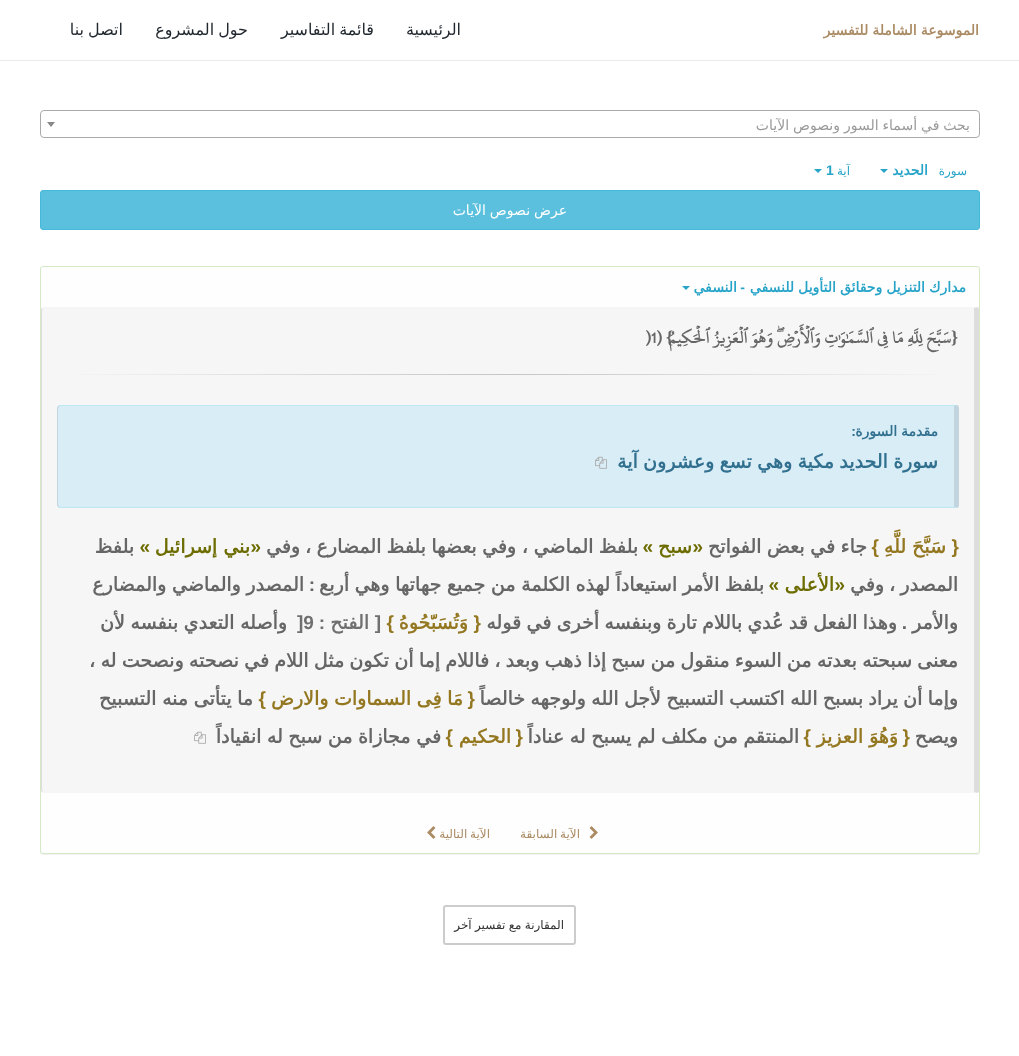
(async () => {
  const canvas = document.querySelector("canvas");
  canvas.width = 1019;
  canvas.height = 1056;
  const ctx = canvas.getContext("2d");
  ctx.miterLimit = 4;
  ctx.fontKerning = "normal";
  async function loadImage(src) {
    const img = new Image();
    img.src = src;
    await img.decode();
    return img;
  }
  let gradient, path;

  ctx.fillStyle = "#ffffff";
  ctx.fillRect(0, 0, 1019, 1056);
  ctx.fillStyle = "#ebebeb";
  ctx.fillRect(0, 60, 1019, 1);
  ctx.beginPath();
  ctx.roundRect(40.5, 110.5, 939, 27, 3.5);
  ctx.strokeStyle = "#aaaaaa";
  ctx.stroke();
  ctx.fillStyle = "#888888";
  path = new Path2D("M47 122H55L51 127Z");
  ctx.fill(path);
  ctx.fillStyle = "#28a4c9";
  path = new Path2D("M880 169H888L884 173Z");
  ctx.fill(path);
  path = new Path2D("M814 169H822L818 173Z");
  ctx.fill(path);
  ctx.fillStyle = "#5bc0de";
  ctx.beginPath();
  ctx.roundRect(40.5, 190.5, 939, 39, 2.5);
  ctx.fill();
  ctx.strokeStyle = "#46b8da";
  ctx.stroke();
  ctx.fillStyle = "rgba(0, 0, 0, 0.05)";
  ctx.filter = "blur(0.5px)";
  ctx.beginPath();
  ctx.roundRect(40, 267, 940, 588, 3);
  ctx.fill();
  ctx.filter = "none";
  ctx.fillStyle = "#fefefe";
  ctx.beginPath();
  ctx.roundRect(40.5, 266.5, 939, 587, 2.5);
  ctx.fill();
  ctx.strokeStyle = "#d6e9c6";
  ctx.stroke();
  ctx.fillStyle = "#28a4c9";
  path = new Path2D("M682 286H690L686 290Z");
  ctx.fill(path);
  ctx.fillStyle = "#f6f6f6";
  ctx.beginPath();
  ctx.roundRect(41, 307, 938, 486, 3);
  ctx.fill();
  ctx.fillStyle = "rgba(0, 0, 0, 0.1)";
  path = new Path2D("M979 790V310C979 309 979 308 978 307L974 308V792L978 793C979 792 979 791 979 790Z");
  ctx.fill(path);
  ctx.fillStyle = "#dddddd";
  path = new Path2D("M41 310V790L42 792L43 791L42 790V310L43 309L42 308Z");
  ctx.fill(path);
  gradient = ctx.createLinearGradient(57, 375, 959, 375);
  gradient.addColorStop(0, "#f6f6f6");
  gradient.addColorStop(0.5, "#c5c5c5");
  gradient.addColorStop(1, "#f6f6f6");
  ctx.fillStyle = gradient;
  ctx.fillRect(80, 374, 856, 1);
  ctx.fillStyle = "#d9edf7";
  ctx.beginPath();
  ctx.roundRect(57, 405, 902, 103, 3);
  ctx.fill();
  ctx.fillStyle = "#bce8f1";
  path = new Path2D("M60 405L58 406L59 407L60 406H954L958 405H956Z");
  ctx.fill(path);
  ctx.fillStyle = "rgba(0, 0, 0, 0.1)";
  path = new Path2D("M959 505V408L958 405L954 406V507L958 508C959 507 959 506 959 505Z");
  ctx.fill(path);
  ctx.fillStyle = "#bce8f1";
  path = new Path2D("M60 508H958L954 507H60L59 506L58 507Z");
  ctx.fill(path);
  ctx.fillStyle = "rgba(0, 0, 0, 0.1)";
  path = new Path2D("M57 408V505L58 507L59 506L58 505V408L59 407L58 406Z");
  ctx.fill(path);
  ctx.drawImage(await loadImage("img/1.png"), 595, 456, 12, 13);
  ctx.drawImage(await loadImage("img/2.png"), 194, 731, 12, 13);
  ctx.drawImage(await loadImage("img/3.png"), 589, 826, 9, 13);
  ctx.drawImage(await loadImage("img/4.png"), 427, 826, 9, 13);
  ctx.beginPath();
  ctx.roundRect(444, 906, 131, 38, 2);
  ctx.strokeStyle = "#cccccc";
  ctx.lineWidth = 2;
  ctx.stroke();
  ctx.wordSpacing = "-0.5px";
  ctx.direction = "rtl";
  ctx.font = "bold 14px DejaVu Sans";
  ctx.fillStyle = "#ab8b64";
  ctx.fillText("الموسوعة الشاملة للتفسير", 979, 35);
  ctx.wordSpacing = "0px";
  ctx.font = "16px DejaVu Sans";
  ctx.fillStyle = "#1f262d";
  ctx.fillText("الرئيسية", 461, 35);
  ctx.wordSpacing = "-1px";
  for (const [text, x, y] of [
    ["قائمة التفاسير", 374, 35],
    ["حول المشروع", 248, 35],
    ["اتصل بنا", 123, 35],
  ]) {
    ctx.fillText(text, x, y);
  }
  ctx.wordSpacing = "-0.5px";
  ctx.font = "14px DejaVu Sans";
  ctx.fillStyle = "#999999";
  ctx.fillText("بحث في أسماء السور ونصوص الآيات", 970, 130);
  ctx.wordSpacing = "0px";
  ctx.font = "12px DejaVu Sans";
  ctx.fillStyle = "#28a4c9";
  ctx.fillText("سورة", 967, 175);
  ctx.font = "bold 14px DejaVu Sans";
  ctx.fillText("الحديد", 928, 175);
  ctx.font = "12px DejaVu Sans";
  ctx.fillText("آية", 850, 175);
  ctx.direction = "ltr";
  ctx.font = "bold 14px Liberation Sans";
  ctx.fillText("1", 826, 175);
  ctx.wordSpacing = "-0.5px";
  ctx.direction = "rtl";
  ctx.font = "14px DejaVu Sans";
  ctx.fillStyle = "#ffffff";
  ctx.fillText("عرض نصوص الآيات", 567, 215);
  ctx.font = "bold 14px DejaVu Sans";
  ctx.fillStyle = "#28a4c9";
  ctx.fillText("مدارك التنزيل وحقائق التأويل للنسفي", 966, 292);
  ctx.wordSpacing = "0px";
  ctx.font = "bold 14px Liberation Sans";
  ctx.fillText("-", 745, 292);
  ctx.font = "bold 14px DejaVu Sans";
  ctx.fillText("النسفي", 737, 292);
  ctx.font = "bold 18px Liberation Serif";
  ctx.fillStyle = "#666666";
  ctx.fillText("{", 958, 343);
  ctx.font = "bold 18px 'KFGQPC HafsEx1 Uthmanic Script'";
  ctx.fillText("سَبَّحَ لِلَّهِ مَا فِي ٱلسَّمَٰوَٰتِ وَٱلۡأَرۡضِۖ وَهُوَ ٱلۡعَزِيزُ ٱلۡحَكِيمُ", 951, 343);
  ctx.font = "bold 18px Liberation Serif";
  ctx.fillText("}", 673, 343);
  ctx.font = "bold 18px 'KFGQPC HafsEx1 Uthmanic Script'";
  ctx.fillText("(", 662, 343);
  ctx.direction = "ltr";
  ctx.fillText(")1", 645, 343);
  ctx.wordSpacing = "-0.5px";
  ctx.direction = "rtl";
  ctx.font = "bold 14px DejaVu Sans";
  ctx.fillStyle = "#31708f";
  ctx.fillText("مقدمة السورة", 938, 436);
  ctx.wordSpacing = "0px";
  ctx.font = "bold 14px Liberation Sans";
  ctx.fillText(":", 856, 436);
  ctx.wordSpacing = "-0.75px";
  ctx.font = "bold 19px DejaVu Sans";
  ctx.fillText("سورة الحديد مكية وهي تسع وعشرون آية", 938, 468);
  ctx.wordSpacing = "0px";
  ctx.font = "bold 19px Liberation Sans";
  ctx.fillStyle = "#947721";
  ctx.fillText("{", 959, 553);
  ctx.font = "bold 19px DejaVu Sans";
  ctx.fillText("سَبَّحَ للَّهِ", 946, 553);
  ctx.font = "bold 19px Liberation Sans";
  ctx.fillText("}", 879, 553);
  ctx.wordSpacing = "-0.5px";
  ctx.font = "bold 19px DejaVu Sans";
  ctx.fillStyle = "#666666";
  ctx.fillText("جاء في بعض الفواتح", 867, 553);
  ctx.wordSpacing = "0px";
  ctx.font = "bold 19px Liberation Sans";
  ctx.fillStyle = "#6c6c00";
  ctx.fillText("«", 703, 553);
  ctx.font = "bold 19px DejaVu Sans";
  ctx.fillText("سبح", 692, 553);
  ctx.font = "bold 19px Liberation Sans";
  ctx.fillText("»", 653, 553);
  ctx.wordSpacing = "-0.5px";
  ctx.font = "bold 19px DejaVu Sans";
  ctx.fillStyle = "#666666";
  ctx.fillText("بلفظ الماضي ،", 638, 553);
  ctx.wordSpacing = "-0.75px";
  ctx.fillText("وفي بعضها بلفظ المضارع ،", 516, 553);
  ctx.wordSpacing = "0px";
  ctx.fillText("وفي", 300, 553);
  ctx.font = "bold 19px Liberation Sans";
  ctx.fillStyle = "#6c6c00";
  ctx.fillText("«", 261, 553);
  ctx.font = "bold 19px DejaVu Sans";
  ctx.fillText("بني إسرائيل", 250, 553);
  ctx.font = "bold 19px Liberation Sans";
  ctx.fillText("»", 150, 553);
  ctx.font = "bold 19px DejaVu Sans";
  ctx.fillStyle = "#666666";
  ctx.fillText("بلفظ", 134, 553);
  ctx.wordSpacing = "-0.75px";
  ctx.fillText("المصدر ،", 958, 591);
  ctx.wordSpacing = "0px";
  ctx.fillText("وفي", 884, 591);
  ctx.font = "bold 19px Liberation Sans";
  ctx.fillStyle = "#6c6c00";
  ctx.fillText("«", 845, 591);
  ctx.font = "bold 19px DejaVu Sans";
  ctx.fillText("الأعلى", 834, 591);
  ctx.font = "bold 19px Liberation Sans";
  ctx.fillText("»", 779, 591);
  ctx.wordSpacing = "-0.5px";
  ctx.font = "bold 19px DejaVu Sans";
  ctx.fillStyle = "#666666";
  ctx.fillText("بلفظ الأمر استيعاداً لهذه الكلمة من جميع جهاتها وهي أربع", 764, 591);
  ctx.wordSpacing = "0px";
  ctx.font = "bold 19px Liberation Sans";
  ctx.fillText(":", 315, 591);
  ctx.wordSpacing = "-0.5px";
  ctx.font = "bold 19px DejaVu Sans";
  ctx.fillText("المصدر والماضي والمضارع", 304, 591);
  ctx.wordSpacing = "0px";
  ctx.fillText("والأمر", 958, 629);
  ctx.font = "bold 19px Liberation Sans";
  ctx.fillText(".", 907, 629);
  ctx.wordSpacing = "-0.75px";
  ctx.font = "bold 19px DejaVu Sans";
  ctx.fillText("وهذا الفعل قد عُدي باللام تارة وبنفسه أخرى في قوله", 897, 629);
  ctx.wordSpacing = "0px";
  ctx.font = "bold 19px Liberation Sans";
  ctx.fillStyle = "#947721";
  ctx.fillText("{", 481, 629);
  ctx.font = "bold 19px DejaVu Sans";
  ctx.fillText("وَتُسَبّحُوهُ", 468, 629);
  ctx.font = "bold 19px Liberation Sans";
  ctx.fillText("}", 394, 629);
  ctx.fillStyle = "#707070";
  ctx.fillText("[", 381, 629);
  ctx.font = "bold 19px DejaVu Sans";
  ctx.fillText("الفتح", 369, 629);
  ctx.font = "bold 19px Liberation Sans";
  ctx.fillText(":", 325, 629);
  ctx.direction = "ltr";
  ctx.fillText("]9", 297, 629);
  ctx.wordSpacing = "-0.5px";
  ctx.direction = "rtl";
  ctx.font = "bold 19px DejaVu Sans";
  ctx.fillStyle = "#666666";
  ctx.fillText("وأصله التعدي بنفسه لأن", 287, 629);
  ctx.wordSpacing = "-0.75px";
  for (const [text, x, y] of [
    ["معنى سبحته بعدته من السوء منقول من سبح إذا ذهب وبعد ،", 958, 667],
    ["فاللام إما أن تكون مثل اللام في نصحته ونصحت له ،", 489, 667],
    ["وإما أن يراد بسبح الله اكتسب التسبيح لأجل الله ولوجهه خالصاً", 958, 705],
  ]) {
    ctx.fillText(text, x, y);
  }
  ctx.wordSpacing = "0px";
  ctx.font = "bold 19px Liberation Sans";
  ctx.fillStyle = "#947721";
  ctx.fillText("{", 475, 705);
  ctx.wordSpacing = "-0.5px";
  ctx.font = "bold 19px DejaVu Sans";
  ctx.fillText("مَا فِى السماوات والارض", 463, 705);
  ctx.wordSpacing = "0px";
  ctx.font = "bold 19px Liberation Sans";
  ctx.fillText("}", 266, 705);
  ctx.wordSpacing = "-0.5px";
  ctx.font = "bold 19px DejaVu Sans";
  ctx.fillStyle = "#666666";
  ctx.fillText("ما يتأتى منه التسبيح", 253, 705);
  ctx.wordSpacing = "0px";
  ctx.fillText("ويصح", 958, 743);
  ctx.font = "bold 19px Liberation Sans";
  ctx.fillStyle = "#947721";
  ctx.fillText("{", 910, 743);
  ctx.font = "bold 19px DejaVu Sans";
  ctx.fillText("وَهُوَ العزيز", 898, 743);
  ctx.font = "bold 19px Liberation Sans";
  ctx.fillText("}", 811, 743);
  ctx.wordSpacing = "-0.5px";
  ctx.font = "bold 19px DejaVu Sans";
  ctx.fillStyle = "#666666";
  ctx.fillText("المنتقم من مكلف لم يسبح له عناداً", 799, 743);
  ctx.wordSpacing = "0px";
  ctx.font = "bold 19px Liberation Sans";
  ctx.fillStyle = "#947721";
  ctx.fillText("{", 523, 743);
  ctx.font = "bold 19px DejaVu Sans";
  ctx.fillText("الحكيم", 511, 743);
  ctx.font = "bold 19px Liberation Sans";
  ctx.fillText("}", 453, 743);
  ctx.wordSpacing = "-0.5px";
  ctx.font = "bold 19px DejaVu Sans";
  ctx.fillStyle = "#666666";
  ctx.fillText("في مجازاة من سبح له انقياداً", 441, 743);
  ctx.wordSpacing = "-1px";
  ctx.font = "12px DejaVu Sans";
  ctx.fillStyle = "#ab8b64";
  ctx.fillText("الآية السابقة", 580, 838);
  ctx.fillText("الآية التالية", 490, 838);
  ctx.wordSpacing = "-0.5px";
  ctx.fillStyle = "#333333";
  ctx.fillText("المقارنة مع تفسير آخر", 564, 929);
})();
